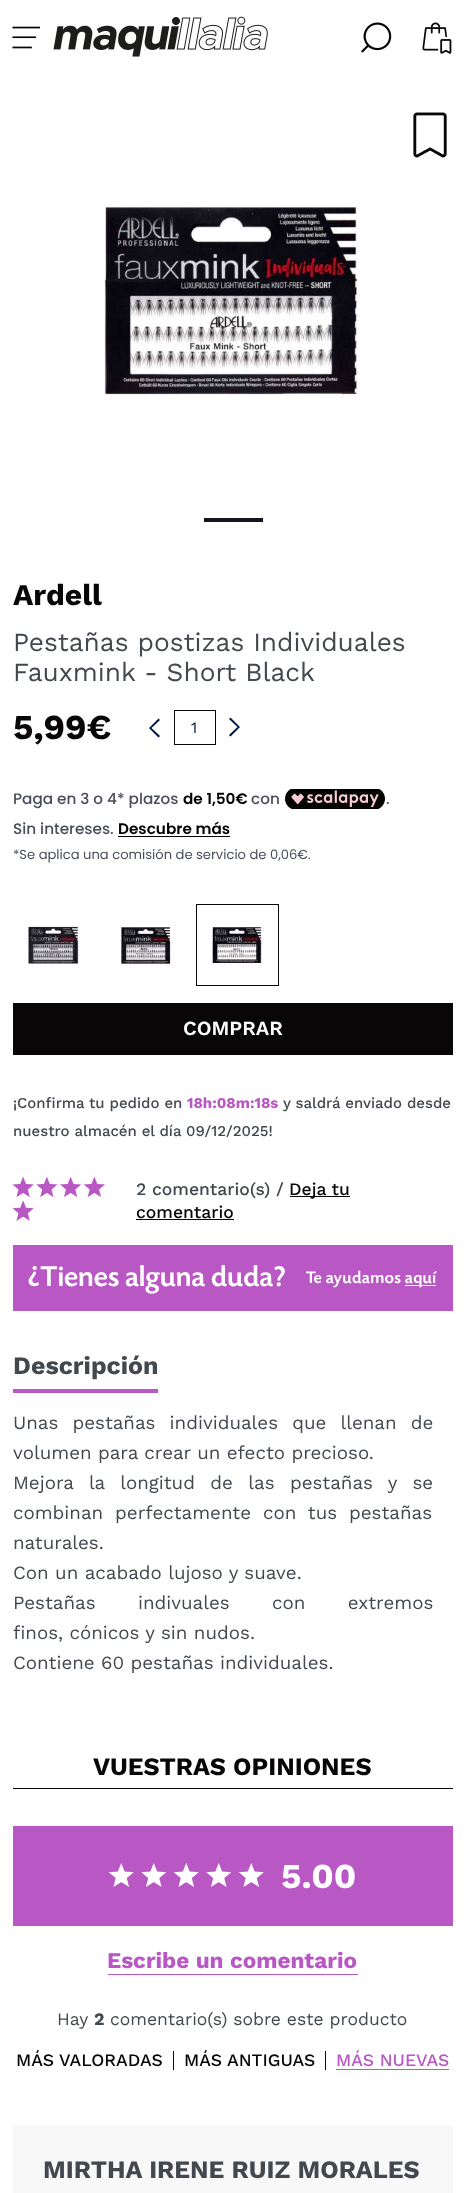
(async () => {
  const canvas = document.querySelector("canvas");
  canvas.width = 464;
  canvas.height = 2193;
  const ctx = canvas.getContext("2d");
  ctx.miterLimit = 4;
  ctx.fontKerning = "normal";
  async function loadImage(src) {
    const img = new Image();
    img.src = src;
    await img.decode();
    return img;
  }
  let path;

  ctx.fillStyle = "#ffffff";
  ctx.fillRect(0, 0, 464, 2193);
  ctx.drawImage(await loadImage("img/1.png"), 12, 26, 28, 23);
  ctx.drawImage(await loadImage("img/2.png"), 53, 16, 215, 41);
  ctx.drawImage(await loadImage("img/3.png"), 361, 22, 31, 31);
  ctx.drawImage(await loadImage("img/4.png"), 422, 22, 30, 32);
  ctx.drawImage(await loadImage("img/5.png"), 413, 112, 34, 46);
  ctx.drawImage(await loadImage("img/6.png"), 104, 206, 256, 189);
  ctx.fillStyle = "#17141d";
  ctx.fillRect(204, 518, 59, 4);
  ctx.fillStyle = "#001644";
  path = new Path2D("M158.5 737.5L160 736L151.5 728L160 720L158.5 718.5L149 728Z");
  ctx.fill(path);
  ctx.strokeStyle = "#080607";
  ctx.strokeRect(174.5, 710.5, 41, 34);
  path = new Path2D("M230.5 717.5L229 719L237.5 727L229 735L230.5 736.5L240 727Z");
  ctx.fill(path);
  ctx.drawImage(await loadImage("img/7.png"), 285, 789, 100, 20);
  ctx.fillStyle = "#000000";
  ctx.fillRect(118, 836, 112, 1);
  ctx.drawImage(await loadImage("img/8.png"), 28, 926, 51, 38);
  ctx.drawImage(await loadImage("img/9.png"), 121, 927, 50, 37);
  ctx.strokeRect(196.5, 904.5, 82, 81);
  ctx.drawImage(await loadImage("img/10.png"), 212, 927, 50, 37);
  ctx.fillStyle = "#080607";
  ctx.fillRect(13, 1003, 440, 52);
  ctx.drawImage(await loadImage("img/11.png"), 12, 1176, 22, 21);
  ctx.drawImage(await loadImage("img/12.png"), 36, 1176, 22, 21);
  ctx.drawImage(await loadImage("img/13.png"), 60, 1176, 22, 21);
  ctx.drawImage(await loadImage("img/14.png"), 83, 1176, 22, 21);
  ctx.drawImage(await loadImage("img/15.png"), 12, 1200, 22, 21);
  for (const [x, y, w, h, color] of [
    [290, 1196, 60, 1, "#080607"],
    [136, 1219, 98, 1, "#080607"],
    [13, 1245, 440, 66, "#b957c5"],
    [405, 1285, 31, 1, "#ffffff"],
    [13, 1389, 145, 4, "#bb57c6"],
    [13, 1788, 440, 1, "#080607"],
    [13, 1826, 440, 100, "#b957c5"],
  ]) {
    ctx.fillStyle = color;
    ctx.fillRect(x, y, w, h);
  }
  ctx.drawImage(await loadImage("img/16.png"), 108, 1863, 26, 24);
  ctx.drawImage(await loadImage("img/17.png"), 141, 1863, 26, 24);
  ctx.drawImage(await loadImage("img/16.png"), 173, 1863, 26, 24);
  ctx.drawImage(await loadImage("img/17.png"), 206, 1863, 26, 24);
  ctx.drawImage(await loadImage("img/16.png"), 238, 1863, 26, 24);
  for (const [x, y, w, h, color] of [
    [108, 1974, 250, 1, "#b957c5"],
    [173, 2051, 1, 19, "#080607"],
    [325, 2051, 1, 19, "#080607"],
    [336, 2069, 113, 1, "#b957c5"],
    [13, 2125, 440, 68, "#f8f8f8"],
  ]) {
    ctx.fillStyle = color;
    ctx.fillRect(x, y, w, h);
  }
  ctx.font = "bold 30px Work Sans";
  ctx.fillStyle = "#080607";
  ctx.fillText("Ardell", 13, 605);
  ctx.font = "26.25px Work Sans";
  ctx.fillStyle = "#42484e";
  ctx.fillText("Pestañas postizas Individuales", 13, 651);
  ctx.fillText("Fauxmink - Short Black", 13, 681);
  ctx.font = "bold 35px Work Sans";
  ctx.fillStyle = "#080607";
  ctx.fillText("5,99€", 13, 739);
  ctx.font = "16px Work Sans";
  ctx.fillStyle = "#001644";
  ctx.fillText("1", 191, 733);
  ctx.font = "500 15.25px Poppins";
  ctx.fillStyle = "#4a4d5a";
  ctx.fillText("Paga en 3 o 4* plazos", 13, 804);
  ctx.font = "600 15.25px Poppins";
  ctx.fillStyle = "#000000";
  ctx.fillText("de 1,50€", 183, 804);
  ctx.font = "500 15.25px Poppins";
  ctx.fillStyle = "#4a4d5a";
  for (const [text, x, y] of [
    ["con", 251, 804],
    [".", 386, 804],
    ["Sin intereses.", 13, 834],
  ]) {
    ctx.fillText(text, x, y);
  }
  ctx.font = "600 15.25px Poppins";
  ctx.fillStyle = "#000000";
  ctx.fillText("Descubre más", 118, 834);
  ctx.font = "13.1px Poppins";
  ctx.fillStyle = "#4a4d5a";
  ctx.fillText("*Se aplica una comisión de servicio de 0,06€.", 13, 859);
  ctx.font = "600 20px Work Sans";
  ctx.fillStyle = "#ffffff";
  ctx.fillText("COMPRAR", 183, 1035);
  ctx.font = "500 15px Work Sans";
  ctx.fillStyle = "#42484e";
  ctx.fillText("¡Confirma tu pedido en", 13, 1108);
  ctx.font = "bold 15px Work Sans";
  ctx.fillStyle = "#b957c5";
  ctx.fillText("18h:08m:18s", 187, 1108);
  ctx.font = "500 15px Work Sans";
  ctx.fillStyle = "#42484e";
  ctx.fillText("y saldrá enviado desde", 283, 1108);
  ctx.fillText("nuestro almacén el día 09/12/2025!", 13, 1136);
  ctx.font = "500 17.5px Work Sans";
  ctx.fillText("2 comentario(s) /", 136, 1195);
  ctx.fillStyle = "#080607";
  ctx.fillText("Deja tu", 289, 1195);
  ctx.fillText("comentario", 136, 1218);
  ctx.letterSpacing = "0.75px";
  ctx.font = "500 30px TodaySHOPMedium";
  ctx.fillStyle = "#ffffff";
  ctx.fillText("¿Tienes alguna duda?", 28, 1286);
  ctx.font = "500 17.5px TodaySHOPMedium";
  ctx.fillText("Te ayudamos", 306, 1283);
  ctx.fillText("aquí", 405, 1283);
  ctx.letterSpacing = "0px";
  ctx.font = "bold 25px Work Sans";
  ctx.fillStyle = "#42484e";
  ctx.fillText("Descripción", 13, 1374);
  ctx.wordSpacing = "7.75px";
  ctx.font = "18.75px Work Sans";
  ctx.fillText("Unas pestañas individuales que llenan de", 13, 1429);
  ctx.wordSpacing = "0px";
  ctx.fillText("volumen para crear un efecto precioso.", 13, 1459);
  ctx.wordSpacing = "9px";
  ctx.fillText("Mejora la longitud de las pestañas y se", 13, 1489);
  ctx.wordSpacing = "5.5px";
  ctx.fillText("combinan perfectamente con tus pestañas", 13, 1519);
  ctx.wordSpacing = "0px";
  ctx.fillText("naturales.", 13, 1549);
  ctx.fillText("Con un acabado lujoso y suave.", 13, 1579);
  ctx.wordSpacing = "36px";
  ctx.fillText("Pestañas indivuales con extremos", 13, 1609);
  ctx.wordSpacing = "0px";
  ctx.fillText("finos, cónicos y sin nudos.", 13, 1639);
  ctx.fillText("Contiene 60 pestañas individuales.", 13, 1669);
  ctx.font = "bold 25px Work Sans";
  ctx.fillStyle = "#080607";
  ctx.fillText("VUESTRAS OPINIONES", 93, 1775);
  ctx.font = "bold 35px Work Sans";
  ctx.fillStyle = "#ffffff";
  ctx.fillText("5.00", 281, 1888);
  ctx.font = "bold 22.5px Work Sans";
  ctx.fillStyle = "#b957c5";
  ctx.fillText("Escribe un comentario", 107, 1968);
  ctx.font = "17.5px Work Sans";
  ctx.fillStyle = "#42484e";
  ctx.fillText("Hay", 57, 2025);
  ctx.font = "bold 17.5px Work Sans";
  ctx.fillText("2", 94, 2025);
  ctx.font = "17.5px Work Sans";
  ctx.fillText("comentario(s) sobre este producto", 110, 2025);
  ctx.font = "500 17.5px Work Sans";
  ctx.fillStyle = "#080607";
  ctx.fillText("MÁS VALORADAS", 16, 2066);
  ctx.fillText("MÁS ANTIGUAS", 184, 2066);
  ctx.fillStyle = "#b957c5";
  ctx.fillText("MÁS NUEVAS", 336, 2066);
  ctx.font = "bold 25px Work Sans";
  ctx.fillStyle = "#42484e";
  ctx.fillText("MIRTHA IRENE RUIZ MORALES", 43, 2178);
})();
